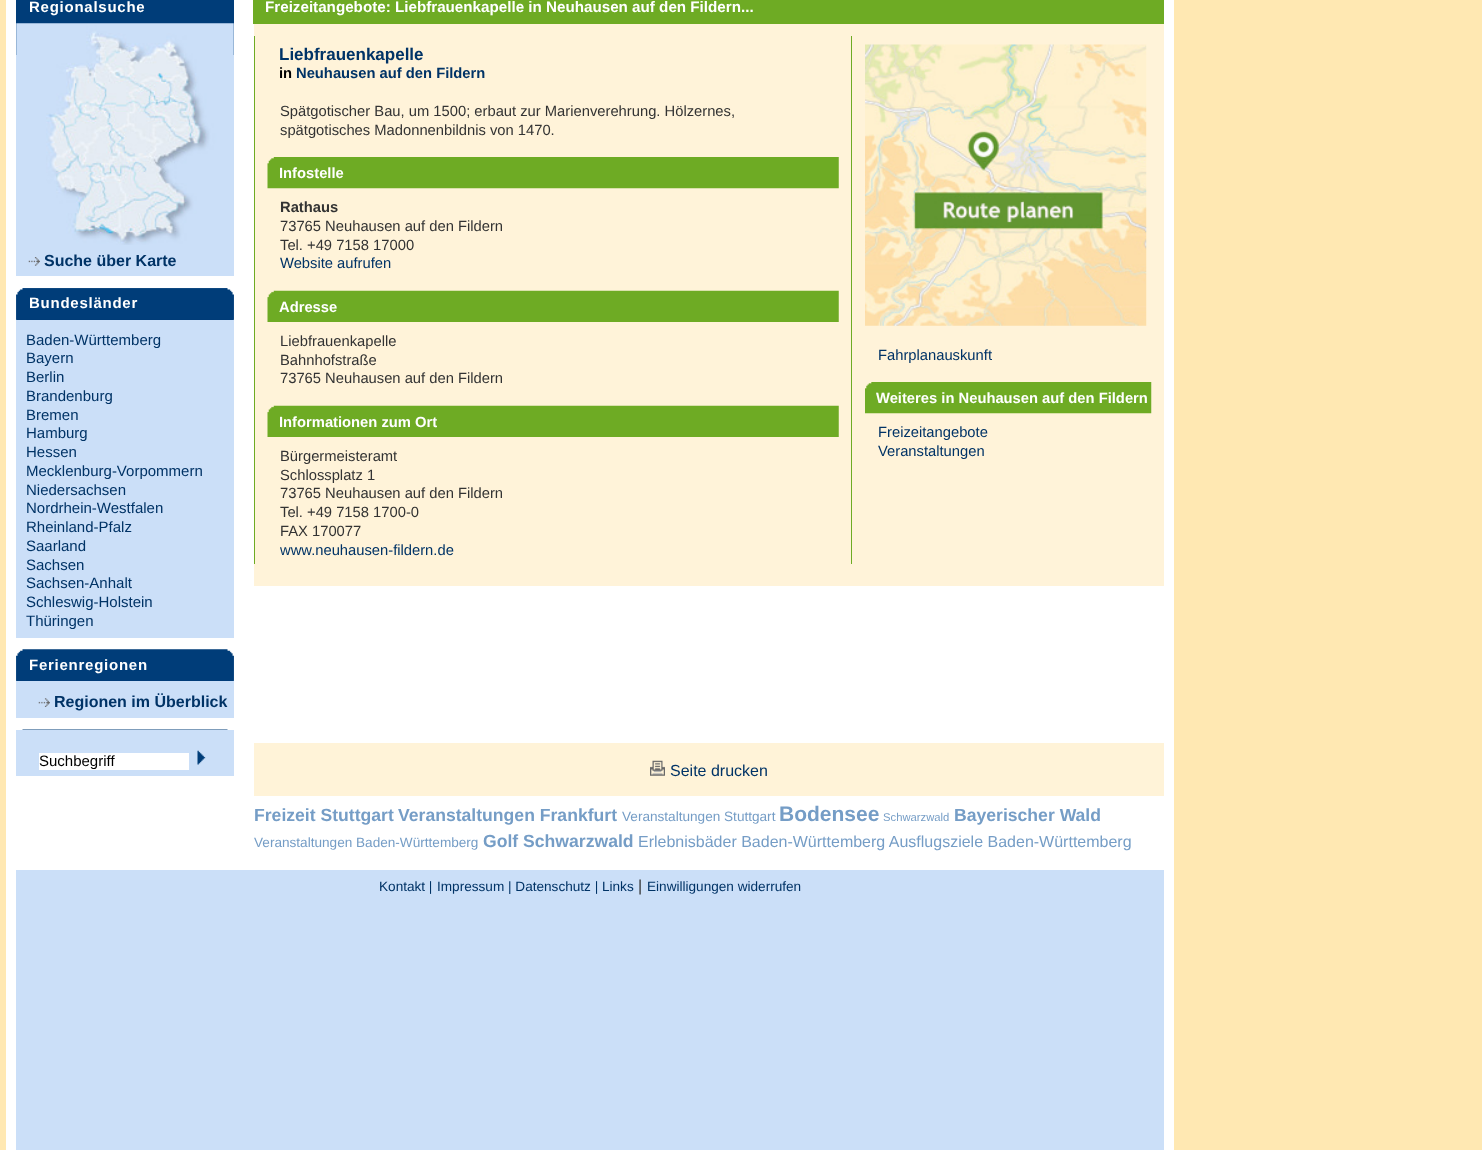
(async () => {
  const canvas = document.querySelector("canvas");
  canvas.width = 1482;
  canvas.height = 1150;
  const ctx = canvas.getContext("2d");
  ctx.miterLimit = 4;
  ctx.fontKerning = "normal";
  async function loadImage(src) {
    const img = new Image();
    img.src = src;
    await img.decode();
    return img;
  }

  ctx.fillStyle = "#ffe8b2";
  ctx.fillRect(0, 0, 1482, 1150);
  for (const [x, y, w, h, color] of [
    [6, 0, 1168, 1150, "#ffffff"],
    [16, 55, 218, 221, "#cbdff8"],
    [16, 0, 218, 55, "#003d79"],
  ]) {
    ctx.fillStyle = color;
    ctx.fillRect(x, y, w, h);
  }
  ctx.drawImage(await loadImage("img/1.png"), 16, 23, 218, 222);
  ctx.drawImage(await loadImage("img/2.png"), 28, 257, 12, 9);
  ctx.drawImage(await loadImage("img/3.png"), 16, 288, 218, 32);
  ctx.drawImage(await loadImage("img/4.png"), 16, 288, 218, 32);
  ctx.fillStyle = "#cbdff8";
  ctx.fillRect(16, 320, 218, 318);
  ctx.drawImage(await loadImage("img/5.png"), 16, 649, 218, 32);
  ctx.drawImage(await loadImage("img/6.png"), 16, 649, 218, 32);
  ctx.fillRect(16, 681, 218, 37);
  ctx.drawImage(await loadImage("img/7.png"), 38, 698, 12, 9);
  ctx.drawImage(await loadImage("img/8.png"), 16, 729, 218, 1);
  ctx.fillRect(16, 730, 218, 46);
  ctx.fillStyle = "#ffffff";
  ctx.fillRect(39, 753, 150, 17);
  ctx.drawImage(await loadImage("img/9.png"), 197, 750, 9, 15);
  for (const [x, y, w, h, color] of [
    [254, 24, 910, 562, "#fff3d9"],
    [253, 0, 911, 24, "#6eab24"],
    [254, 36, 1, 528, "#6eab24"],
  ]) {
    ctx.fillStyle = color;
    ctx.fillRect(x, y, w, h);
  }
  ctx.drawImage(await loadImage("img/10.png"), 267, 157, 572, 32);
  ctx.drawImage(await loadImage("img/11.png"), 267, 290, 572, 32);
  ctx.drawImage(await loadImage("img/11.png"), 267, 405, 572, 32);
  ctx.fillRect(851, 36, 1, 528);
  ctx.drawImage(await loadImage("img/12.png"), 865, 44, 282, 282);
  ctx.drawImage(await loadImage("img/13.png"), 865, 382, 287, 32);
  ctx.fillStyle = "#fff3d8";
  ctx.fillRect(254, 743, 910, 53);
  ctx.drawImage(await loadImage("img/14.png"), 650, 760, 15, 16);
  ctx.fillStyle = "#cbdff8";
  ctx.fillRect(16, 870, 1148, 280);
  ctx.letterSpacing = "0.75px";
  ctx.font = "bold 15px Liberation Sans";
  ctx.fillStyle = "#ffffff";
  ctx.fillText("Regionalsuche", 29, 12);
  ctx.letterSpacing = "0px";
  ctx.font = "bold 16px Liberation Sans";
  ctx.fillStyle = "#003366";
  ctx.fillText("Suche über Karte", 44, 266);
  ctx.letterSpacing = "0.75px";
  ctx.font = "bold 15px Liberation Sans";
  ctx.fillStyle = "#ffffff";
  ctx.fillText("Bundesländer", 29, 308);
  ctx.letterSpacing = "0px";
  ctx.font = "15px Liberation Sans";
  ctx.fillStyle = "#003366";
  for (const [text, x, y] of [
    ["Baden-Württemberg", 26, 345],
    ["Bayern", 26, 363],
    ["Berlin", 26, 382],
    ["Brandenburg", 26, 401],
    ["Bremen", 26, 420],
    ["Hamburg", 26, 438],
    ["Hessen", 26, 457],
    ["Mecklenburg-Vorpommern", 26, 476],
    ["Niedersachsen", 26, 495],
    ["Nordrhein-Westfalen", 26, 513],
    ["Rheinland-Pfalz", 26, 532],
    ["Saarland", 26, 551],
    ["Sachsen", 26, 570],
    ["Sachsen-Anhalt", 26, 588],
    ["Schleswig-Holstein", 26, 607],
    ["Thüringen", 26, 626],
  ]) {
    ctx.fillText(text, x, y);
  }
  ctx.letterSpacing = "0.75px";
  ctx.font = "bold 15px Liberation Sans";
  ctx.fillStyle = "#ffffff";
  ctx.fillText("Ferienregionen", 29, 670);
  ctx.letterSpacing = "0px";
  ctx.font = "bold 16px Liberation Sans";
  ctx.fillStyle = "#003366";
  ctx.fillText("Regionen im Überblick", 54, 707);
  ctx.font = "15px Liberation Sans";
  ctx.fillStyle = "#000000";
  ctx.fillText("Suchbegriff", 39, 766);
  ctx.font = "bold 15.2px Liberation Sans";
  ctx.fillStyle = "#ffffff";
  ctx.fillText("Freizeitangebote: Liebfrauenkapelle in Neuhausen auf den Fildern...", 265, 12);
  ctx.font = "bold 17px Liberation Sans";
  ctx.fillStyle = "#003366";
  ctx.fillText("Liebfrauenkapelle", 279, 60);
  ctx.font = "bold 14.75px Liberation Sans";
  ctx.fillStyle = "#000000";
  ctx.fillText("in", 279, 78);
  ctx.fillStyle = "#003366";
  ctx.fillText("Neuhausen auf den Fildern", 296, 78);
  ctx.font = "14.75px Liberation Sans";
  ctx.fillStyle = "#333333";
  ctx.fillText("Spätgotischer Bau, um 1500; erbaut zur Marienverehrung. Hölzernes,", 280, 116);
  ctx.fillText("spätgotisches Madonnenbildnis von 1470.", 280, 135);
  ctx.font = "bold 14.75px Liberation Sans";
  ctx.fillStyle = "#ffffff";
  ctx.fillText("Infostelle", 279, 178);
  ctx.fillStyle = "#333333";
  ctx.fillText("Rathaus", 280, 212);
  ctx.font = "14.75px Liberation Sans";
  ctx.fillText("73765 Neuhausen auf den Fildern", 280, 231);
  ctx.fillText("Tel. +49 7158 17000", 280, 250);
  ctx.fillStyle = "#003366";
  ctx.fillText("Website aufrufen", 280, 268);
  ctx.font = "bold 14.75px Liberation Sans";
  ctx.fillStyle = "#ffffff";
  ctx.fillText("Adresse", 279, 312);
  ctx.font = "14.75px Liberation Sans";
  ctx.fillStyle = "#333333";
  for (const [text, x, y] of [
    ["Liebfrauenkapelle", 280, 346],
    ["Bahnhofstraße", 280, 365],
    ["73765 Neuhausen auf den Fildern", 280, 383],
  ]) {
    ctx.fillText(text, x, y);
  }
  ctx.font = "bold 14.75px Liberation Sans";
  ctx.fillStyle = "#ffffff";
  ctx.fillText("Informationen zum Ort", 279, 427);
  ctx.font = "14.75px Liberation Sans";
  ctx.fillStyle = "#333333";
  for (const [text, x, y] of [
    ["Bürgermeisteramt", 280, 461],
    ["Schlossplatz 1", 280, 480],
    ["73765 Neuhausen auf den Fildern", 280, 498],
    ["Tel. +49 7158 1700-0", 280, 517],
    ["FAX 170077", 280, 536],
  ]) {
    ctx.fillText(text, x, y);
  }
  ctx.fillStyle = "#003366";
  ctx.fillText("www.neuhausen-fildern.de", 280, 555);
  ctx.fillText("Fahrplanauskunft", 878, 360);
  ctx.font = "bold 14.75px Liberation Sans";
  ctx.fillStyle = "#ffffff";
  ctx.fillText("Weiteres in Neuhausen auf den Fildern", 876, 403);
  ctx.font = "14.75px Liberation Sans";
  ctx.fillStyle = "#003366";
  ctx.fillText("Freizeitangebote", 878, 437);
  ctx.fillText("Veranstaltungen", 878, 456);
  ctx.font = "16px Liberation Sans";
  ctx.fillText("Seite drucken", 670, 776);
  ctx.font = "bold 17.6px Liberation Sans";
  ctx.fillStyle = "#759dc6";
  ctx.fillText("Freizeit Stuttgart", 254, 821);
  ctx.fillText("Veranstaltungen Frankfurt", 398, 821);
  ctx.font = "13.6px Liberation Sans";
  ctx.fillText("Veranstaltungen Stuttgart", 622, 821);
  ctx.font = "bold 21px Liberation Sans";
  ctx.fillText("Bodensee", 779, 821);
  ctx.font = "11.25px Liberation Sans";
  ctx.fillText("Schwarzwald", 883, 821);
  ctx.font = "bold 17.6px Liberation Sans";
  ctx.fillText("Bayerischer Wald", 954, 821);
  ctx.font = "13.6px Liberation Sans";
  ctx.fillText("Veranstaltungen Baden-Württemberg", 254, 847);
  ctx.font = "bold 17.6px Liberation Sans";
  ctx.fillText("Golf Schwarzwald", 483, 847);
  ctx.font = "16px Liberation Sans";
  ctx.fillText("Erlebnisbäder Baden-Württemberg Ausflugsziele Baden-Württemberg", 638, 847);
  ctx.font = "13.6px Liberation Sans";
  ctx.fillStyle = "#003366";
  ctx.fillText("Kontakt |", 379, 891);
  ctx.fillText("Impressum | Datenschutz | Links", 437, 891);
  ctx.font = "16px Liberation Sans";
  ctx.fillStyle = "#333333";
  ctx.fillText("|", 638, 891);
  ctx.font = "13.6px Liberation Sans";
  ctx.fillStyle = "#003366";
  ctx.fillText("Einwilligungen widerrufen", 647, 891);
})();
